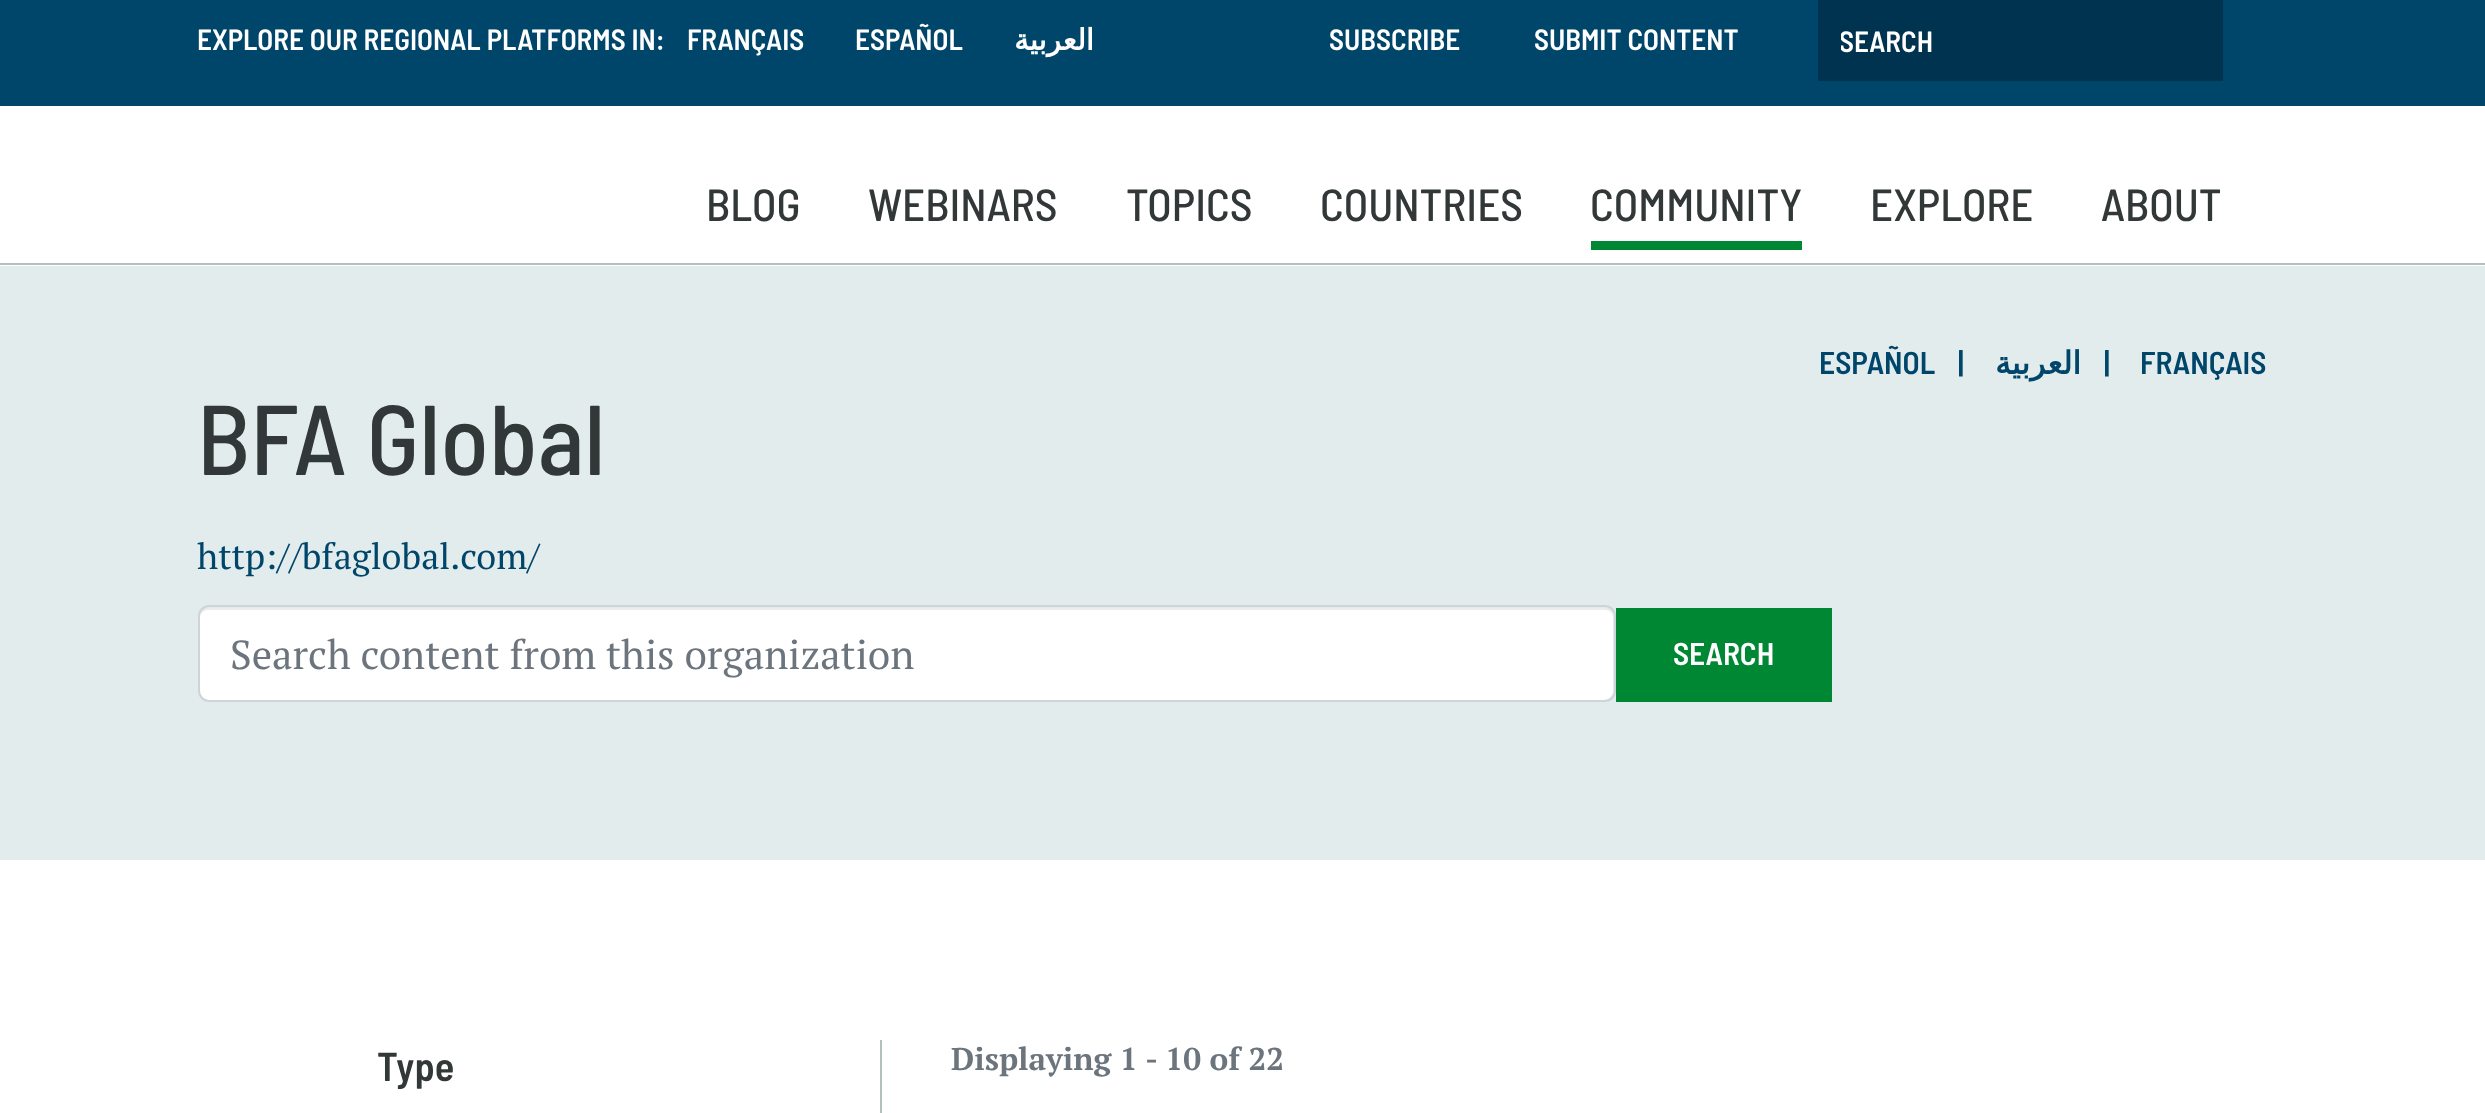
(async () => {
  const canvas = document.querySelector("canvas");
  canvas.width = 2485;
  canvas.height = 1113;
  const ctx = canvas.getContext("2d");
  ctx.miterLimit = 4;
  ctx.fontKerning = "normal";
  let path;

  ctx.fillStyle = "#ffffff";
  ctx.fillRect(0, 0, 2485, 1113);
  for (const [x, y, w, h, color] of [
    [0, 263, 2485, 2, "#b2c0c0"],
    [0, 0, 2485, 106, "#00456a"],
    [1818, 0, 405, 81, "#00334f"],
    [1591, 241, 211, 9, "#008734"],
    [0, 266, 2485, 594, "#e2ecec"],
  ]) {
    ctx.fillStyle = color;
    ctx.fillRect(x, y, w, h);
  }
  ctx.fillStyle = "#ffffff";
  ctx.beginPath();
  ctx.roundRect(200, 608, 1413, 92, 9);
  ctx.fill();
  ctx.fillStyle = "rgba(0, 0, 0, 0.07)";
  path = new Path2D("M208 610H1605C1610 610 1613 613 1613 618C1613 613 1610 608 1604 608H209C203 608 200 613 200 618C200 613 204 610 208 610Z");
  ctx.fill(path);
  ctx.beginPath();
  ctx.roundRect(199, 606, 1416, 95, 10);
  ctx.strokeStyle = "#ced4da";
  ctx.lineWidth = 2;
  ctx.stroke();
  ctx.fillStyle = "#008734";
  ctx.fillRect(1616, 608, 216, 94);
  ctx.fillStyle = "#b2c0c0";
  ctx.fillRect(880, 1040, 2, 73);
  ctx.font = "600 29.25px Barlow Semi Condensed";
  ctx.fillStyle = "#ffffff";
  for (const [text, x, y] of [
    ["EXPLORE OUR REGIONAL PLATFORMS IN:", 197, 50],
    ["FRANÇAIS", 687, 50],
    ["ESPAÑOL", 855, 50],
  ]) {
    ctx.fillText(text, x, y);
  }
  ctx.direction = "rtl";
  ctx.font = "bold 29.25px DejaVu Sans";
  ctx.fillText("العربية", 1094, 50);
  ctx.direction = "ltr";
  ctx.font = "600 29.25px Barlow Semi Condensed";
  ctx.fillText("SUBSCRIBE", 1329, 50);
  ctx.fillText("SUBMIT CONTENT", 1534, 50);
  ctx.save();
  ctx.beginPath();
  ctx.rect(1841, 23, 315, 36);
  ctx.clip();
  ctx.fillText("SEARCH", 1839, 52);
  ctx.restore();
  ctx.font = "500 45px Barlow Semi Condensed";
  ctx.fillStyle = "#323737";
  for (const [text, x, y] of [
    ["BLOG", 706, 221],
    ["WEBINARS", 868, 221],
    ["TOPICS", 1126, 221],
    ["COUNTRIES", 1320, 221],
    ["COMMUNITY", 1590, 221],
    ["EXPLORE", 1870, 221],
    ["ABOUT", 2101, 221],
  ]) {
    ctx.fillText(text, x, y);
  }
  ctx.font = "600 31.5px Barlow Semi Condensed";
  ctx.fillStyle = "#00456a";
  ctx.fillText("ESPAÑOL", 1819, 374);
  ctx.fillText("|", 1958, 374);
  ctx.direction = "rtl";
  ctx.font = "bold 31.5px DejaVu Sans";
  ctx.fillText("العربية", 2081, 374);
  ctx.direction = "ltr";
  ctx.font = "600 31.5px Barlow Semi Condensed";
  ctx.fillText("|", 2104, 374);
  ctx.fillText("FRANÇAIS", 2140, 374);
  ctx.font = "500 99px Barlow Semi Condensed";
  ctx.fillStyle = "#323737";
  ctx.fillText("BFA Global", 197, 475);
  ctx.font = "36px PT Serif";
  ctx.fillStyle = "#00456a";
  ctx.fillText("http://bfaglobal.com/", 197, 569);
  ctx.font = "40.5px PT Serif";
  ctx.fillStyle = "#6c757d";
  ctx.fillText("Search content from this organization", 230, 669);
  ctx.font = "600 31.5px Barlow Semi Condensed";
  ctx.fillStyle = "#ffffff";
  ctx.fillText("SEARCH", 1673, 665);
  ctx.font = "600 40.5px Barlow Semi Condensed";
  ctx.fillStyle = "#323737";
  ctx.fillText("Type", 377, 1081);
  ctx.font = "bold 31.5px PT Serif";
  ctx.fillStyle = "#6c757d";
  ctx.fillText("Displaying 1 - 10 of 22", 951, 1070);
})();
